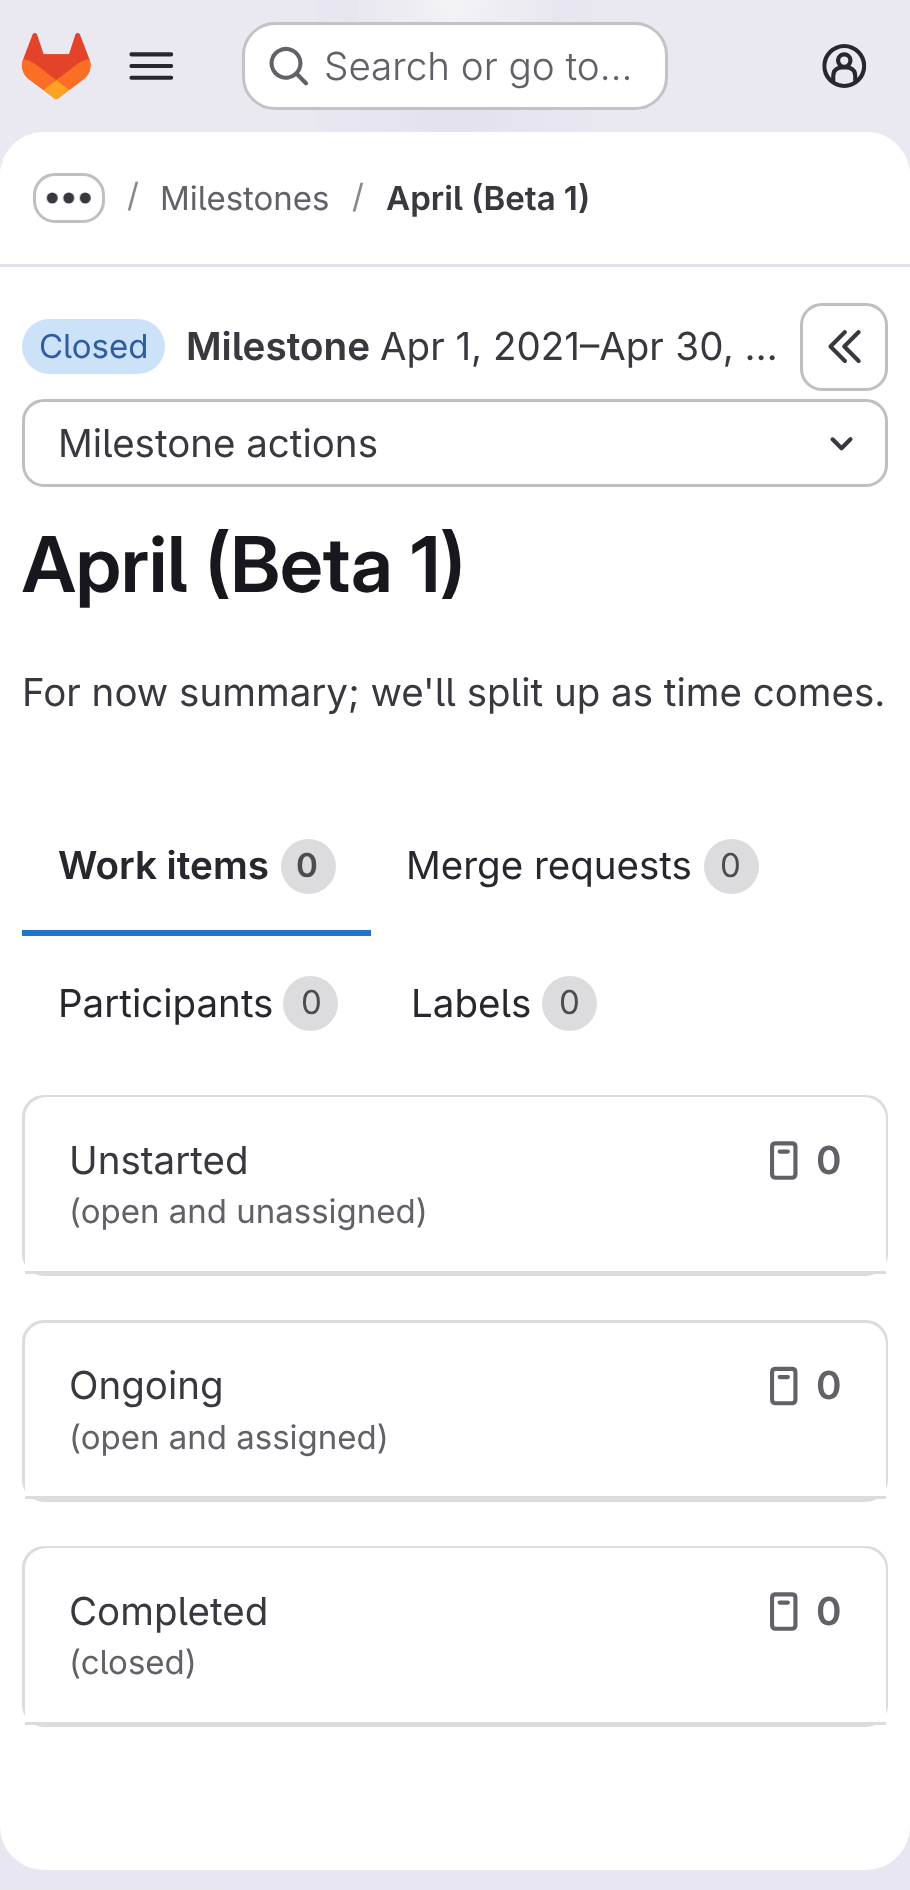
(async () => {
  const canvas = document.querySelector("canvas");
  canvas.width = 910;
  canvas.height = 1890;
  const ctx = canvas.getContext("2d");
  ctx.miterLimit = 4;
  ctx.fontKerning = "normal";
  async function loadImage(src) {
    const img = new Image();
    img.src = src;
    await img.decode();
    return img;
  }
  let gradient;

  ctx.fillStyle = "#ffffff";
  ctx.fillRect(0, 0, 910, 1890);
  gradient = ctx.createLinearGradient(631, 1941, 280, -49);
  gradient.addColorStop(0, "#e8e6f0");
  gradient.addColorStop(0.7, "#eae9f2");
  ctx.fillStyle = gradient;
  ctx.fillRect(0, 0, 910, 1890);
  gradient = ctx.createRadialGradient(455, 0, 0, 455, 0, 455);
  gradient.addColorStop(0, "#e4e2ed");
  gradient.addColorStop(0.42, "rgba(228, 226, 237, 0)");
  ctx.fillStyle = gradient;
  ctx.beginPath();
  ctx.rect(317, 0, 276, 132);
  ctx.save();
  ctx.clip();
  ctx.scale(1, 1892 / 455);
  ctx.fillRect(0, 0, 910, 455);
  ctx.restore();
  gradient = ctx.createRadialGradient(455, 0, 0, 455, 0, 455);
  gradient.addColorStop(0, "#e4e2ec");
  gradient.addColorStop(0.3, "rgba(228, 226, 236, 0)");
  ctx.fillStyle = gradient;
  ctx.beginPath();
  ctx.rect(399, 0, 112, 129);
  ctx.save();
  ctx.clip();
  ctx.scale(1, 1892 / 455);
  ctx.fillRect(0, 0, 910, 455);
  ctx.restore();
  gradient = ctx.createRadialGradient(455, 0, 0, 455, 0, 1946);
  gradient.addColorStop(0, "rgba(255, 255, 255, 0.6)");
  gradient.addColorStop(0.06, "rgba(255, 255, 255, 0)");
  ctx.fillStyle = gradient;
  ctx.fillRect(358, 0, 194, 99);
  ctx.drawImage(await loadImage("img/1.png"), 22, 33, 69, 66);
  ctx.drawImage(await loadImage("img/2.png"), 129, 52, 45, 28);
  ctx.fillStyle = "#ffffff";
  ctx.beginPath();
  ctx.roundRect(242, 22, 426, 88, 33);
  ctx.fill();
  ctx.beginPath();
  ctx.roundRect(243.5, 23.5, 423, 85, 31.5);
  ctx.strokeStyle = "rgba(5, 5, 6, 0.24)";
  ctx.lineWidth = 3;
  ctx.stroke();
  ctx.drawImage(await loadImage("img/3.png"), 269, 46, 40, 40);
  ctx.drawImage(await loadImage("img/4.png"), 822, 44, 45, 44);
  ctx.beginPath();
  ctx.roundRect(0, 132, 910, 1738, 44);
  ctx.fill();
  ctx.beginPath();
  ctx.roundRect(0, 132, 910, 135, [44, 44, 0, 0]);
  ctx.fill();
  ctx.fillStyle = "#e1dfec";
  ctx.fillRect(0, 264, 910, 3);
  ctx.beginPath();
  ctx.roundRect(34.5, 174.5, 69, 47, 20.5);
  ctx.strokeStyle = "#bfbfc3";
  ctx.stroke();
  ctx.drawImage(await loadImage("img/5.png"), 46, 192, 45, 12);
  ctx.fillStyle = "#cbe2f9";
  ctx.beginPath();
  ctx.roundRect(22, 319, 143, 55, 27.5);
  ctx.fill();
  ctx.beginPath();
  ctx.roundRect(801.5, 304.5, 85, 85, 20.5);
  ctx.stroke();
  ctx.drawImage(await loadImage("img/6.png"), 828, 330, 33, 33);
  ctx.beginPath();
  ctx.roundRect(23.5, 400.5, 863, 85, 20.5);
  ctx.stroke();
  ctx.drawImage(await loadImage("img/7.png"), 830, 437, 23, 14);
  ctx.fillStyle = "#dcdcde";
  ctx.beginPath();
  ctx.arc(308.5, 866.5, 27.5, 0, Math.PI * 2);
  ctx.fill();
  ctx.fillStyle = "#1f75cb";
  ctx.fillRect(22, 930, 349, 6);
  ctx.fillStyle = "#dcdcde";
  ctx.beginPath();
  ctx.arc(731.5, 866.5, 27.5, 0, Math.PI * 2);
  ctx.fill();
  ctx.beginPath();
  ctx.arc(310.5, 1003.5, 27.5, 0, Math.PI * 2);
  ctx.fill();
  ctx.beginPath();
  ctx.arc(569.5, 1003.5, 27.5, 0, Math.PI * 2);
  ctx.fill();
  ctx.fillStyle = "#fbfafd";
  ctx.beginPath();
  ctx.roundRect(23.5, 1096.5, 863, 178, 20.5);
  ctx.fill();
  ctx.strokeStyle = "#dcdcde";
  ctx.stroke();
  ctx.fillStyle = "#ffffff";
  ctx.beginPath();
  ctx.roundRect(25, 1097, 861, 176, [22, 22, 0, 0]);
  ctx.fill();
  ctx.fillStyle = "#dcdcde";
  ctx.fillRect(25, 1271, 861, 3);
  ctx.drawImage(await loadImage("img/8.png"), 770, 1141, 28, 39);
  ctx.fillStyle = "#fbfafd";
  ctx.beginPath();
  ctx.roundRect(23.5, 1321.5, 863, 179, 20.5);
  ctx.fill();
  ctx.stroke();
  ctx.fillStyle = "#ffffff";
  ctx.beginPath();
  ctx.roundRect(25, 1323, 861, 176, [22, 22, 0, 0]);
  ctx.fill();
  ctx.fillStyle = "#dcdcde";
  ctx.fillRect(25, 1496, 861, 3);
  ctx.drawImage(await loadImage("img/9.png"), 770, 1366, 28, 40);
  ctx.fillStyle = "#fbfafd";
  ctx.beginPath();
  ctx.roundRect(23.5, 1547.5, 863, 178, 20.5);
  ctx.fill();
  ctx.stroke();
  ctx.fillStyle = "#ffffff";
  ctx.beginPath();
  ctx.roundRect(25, 1548, 861, 176, [22, 22, 0, 0]);
  ctx.fill();
  ctx.fillStyle = "#dcdcde";
  ctx.fillRect(25, 1722, 861, 3);
  ctx.drawImage(await loadImage("img/8.png"), 770, 1592, 28, 39);
  ctx.font = "300 38.5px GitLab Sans";
  ctx.fillStyle = "#626168";
  ctx.fillText("Search or go to…", 324, 80);
  ctx.font = "33px GitLab Sans";
  ctx.fillStyle = "#89888d";
  ctx.fillText("/", 127, 207);
  ctx.fillStyle = "#626168";
  ctx.fillText("Milestones", 160, 210);
  ctx.fillStyle = "#89888d";
  ctx.fillText("/", 352, 208);
  ctx.font = "600 33px 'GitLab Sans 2'";
  ctx.fillStyle = "#3a383f";
  ctx.fillText("April (Beta 1)", 386, 210);
  ctx.font = "33px GitLab Sans";
  ctx.fillStyle = "#2f5ca0";
  ctx.fillText("Closed", 39, 358);
  ctx.font = "600 38.5px 'GitLab Sans 2'";
  ctx.fillStyle = "#3a383f";
  ctx.fillText("Milestone", 186, 360);
  ctx.font = "38.5px GitLab Sans";
  ctx.fillText("Apr 1, 2021–Apr 30, …", 380, 360);
  ctx.fillText("Milestone actions", 58, 457);
  ctx.wordSpacing = "1px";
  ctx.font = "600 77px GitLab Sans";
  ctx.fillStyle = "#18171d";
  ctx.fillText("April (Beta 1)", 22, 592);
  ctx.wordSpacing = "0px";
  ctx.font = "38.5px GitLab Sans";
  ctx.fillStyle = "#3a383f";
  ctx.fillText("For now summary; we'll split up as time comes.", 22, 706);
  ctx.font = "600 38.5px 'GitLab Sans 2'";
  ctx.fillStyle = "#28272d";
  ctx.fillText("Work items", 58, 879);
  ctx.font = "600 33px 'GitLab Sans 2'";
  ctx.fillStyle = "#4c4b51";
  ctx.fillText("0", 296, 877);
  ctx.font = "38.5px GitLab Sans";
  ctx.fillStyle = "#28272d";
  ctx.fillText("Merge requests", 406, 879);
  ctx.font = "33px GitLab Sans";
  ctx.fillStyle = "#4c4b51";
  ctx.fillText("0", 720, 877);
  ctx.font = "38.5px GitLab Sans";
  ctx.fillStyle = "#28272d";
  ctx.fillText("Participants", 58, 1017);
  ctx.font = "33px GitLab Sans";
  ctx.fillStyle = "#4c4b51";
  ctx.fillText("0", 301, 1014);
  ctx.font = "38.5px GitLab Sans";
  ctx.fillStyle = "#28272d";
  ctx.fillText("Labels", 411, 1017);
  ctx.font = "33px GitLab Sans";
  ctx.fillStyle = "#4c4b51";
  ctx.fillText("0", 559, 1014);
  ctx.font = "38.5px GitLab Sans";
  ctx.fillStyle = "#3a383f";
  ctx.fillText("Unstarted", 69, 1174);
  ctx.font = "33px GitLab Sans";
  ctx.fillStyle = "#626168";
  ctx.fillText("(open and unassigned)", 69, 1223);
  ctx.font = "600 38.5px 'GitLab Sans 2'";
  ctx.fillText("0", 816, 1174);
  ctx.font = "38.5px GitLab Sans";
  ctx.fillStyle = "#3a383f";
  ctx.fillText("Ongoing", 69, 1399);
  ctx.font = "33px GitLab Sans";
  ctx.fillStyle = "#626168";
  ctx.fillText("(open and assigned)", 69, 1449);
  ctx.font = "600 38.5px 'GitLab Sans 2'";
  ctx.fillText("0", 816, 1399);
  ctx.font = "38.5px GitLab Sans";
  ctx.fillStyle = "#3a383f";
  ctx.fillText("Completed", 69, 1625);
  ctx.font = "33px GitLab Sans";
  ctx.fillStyle = "#626168";
  ctx.fillText("(closed)", 69, 1674);
  ctx.font = "600 38.5px 'GitLab Sans 2'";
  ctx.fillText("0", 816, 1625);
})();
